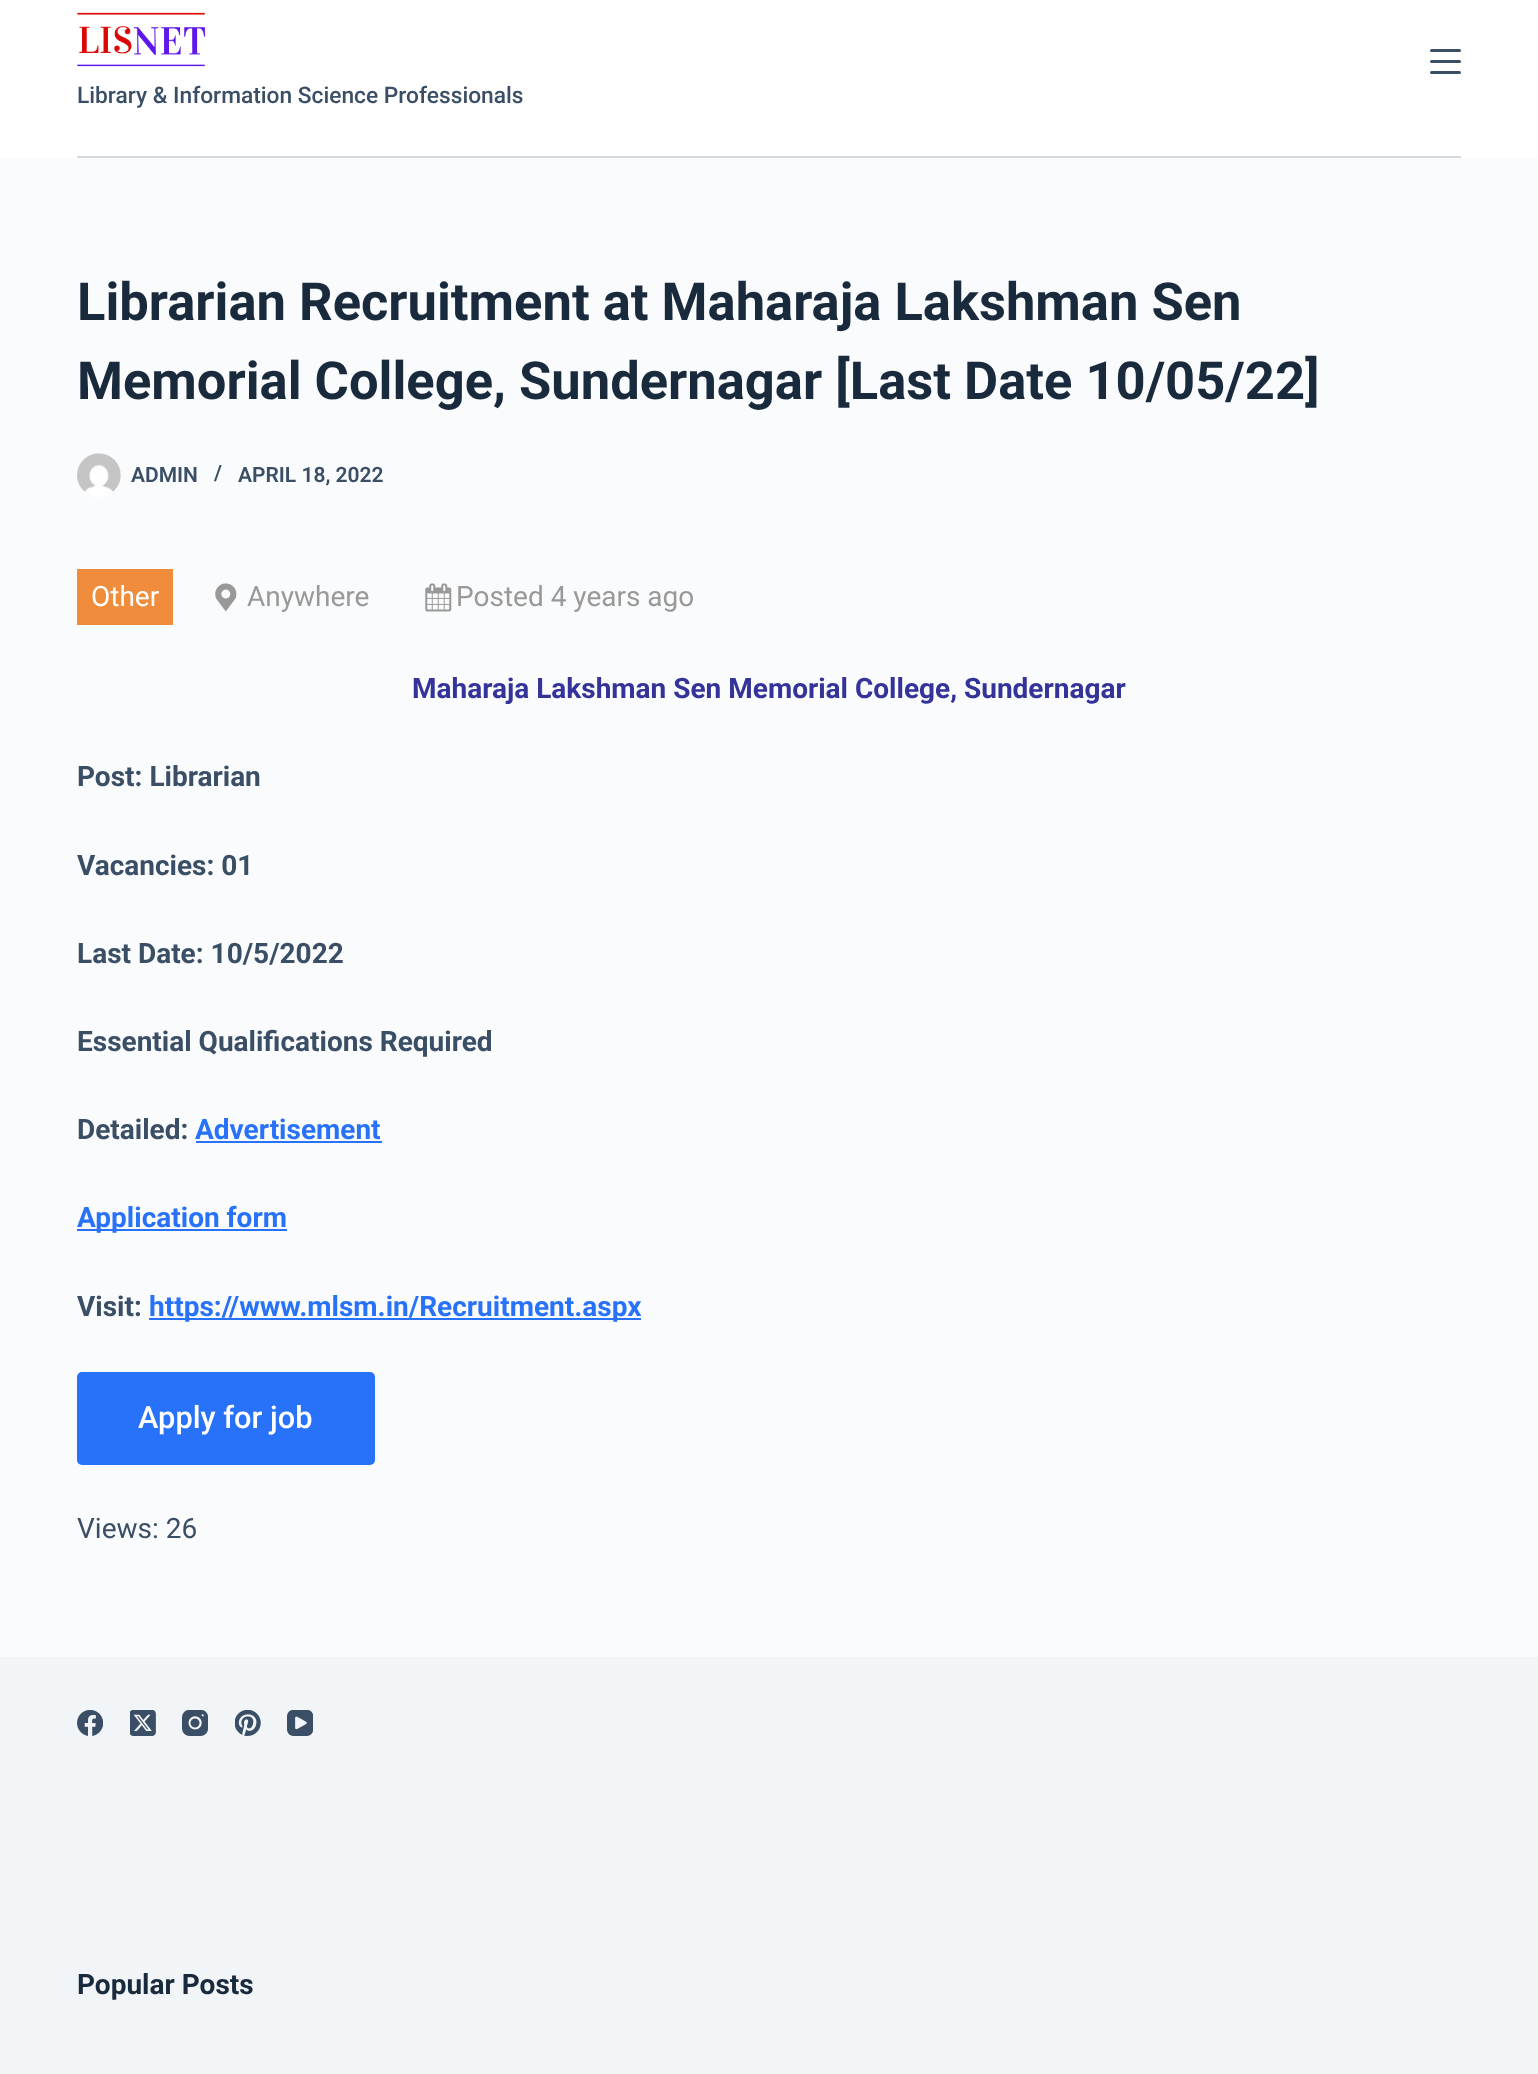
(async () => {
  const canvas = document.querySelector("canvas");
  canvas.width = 1538;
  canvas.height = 2074;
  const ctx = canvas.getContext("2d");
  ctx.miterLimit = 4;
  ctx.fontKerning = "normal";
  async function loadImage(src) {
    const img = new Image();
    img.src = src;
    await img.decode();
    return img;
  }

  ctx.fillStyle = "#fafbfc";
  ctx.fillRect(0, 0, 1538, 2074);
  ctx.fillStyle = "#ffffff";
  ctx.fillRect(0, 0, 1538, 158);
  ctx.fillStyle = "#d5d8dc";
  ctx.fillRect(77, 156, 1384, 2);
  ctx.fillStyle = "#3a4f66";
  ctx.beginPath();
  ctx.roundRect(1430, 49, 31, 3, 1.5);
  ctx.fill();
  ctx.beginPath();
  ctx.roundRect(1430, 60, 31, 3, 1.5);
  ctx.fill();
  ctx.beginPath();
  ctx.roundRect(1430, 71, 31, 3, 1.5);
  ctx.fill();
  ctx.drawImage(await loadImage("img/1.png"), 77, 12, 129, 55);
  ctx.drawImage(await loadImage("img/2.png"), 77, 453, 44, 44);
  ctx.fillStyle = "#f08d3c";
  ctx.fillRect(77, 569, 96, 56);
  ctx.drawImage(await loadImage("img/3.png"), 215, 583, 22, 29);
  ctx.drawImage(await loadImage("img/4.png"), 425, 583, 27, 29);
  for (const [x, y, w, h, color] of [
    [196, 1141, 186, 2, "#2872fa"],
    [77, 1229, 210, 2, "#2872fa"],
    [149, 1318, 492, 2, "#2872fa"],
  ]) {
    ctx.fillStyle = color;
    ctx.fillRect(x, y, w, h);
  }
  ctx.beginPath();
  ctx.roundRect(77, 1372, 298, 93, 5);
  ctx.fill();
  ctx.fillStyle = "#f2f5f7";
  ctx.fillRect(0, 1657, 1538, 417);
  ctx.drawImage(await loadImage("img/5.png"), 77, 1710, 26, 26);
  ctx.drawImage(await loadImage("img/6.png"), 130, 1710, 26, 26);
  ctx.drawImage(await loadImage("img/7.png"), 182, 1710, 26, 26);
  ctx.drawImage(await loadImage("img/8.png"), 235, 1710, 26, 26);
  ctx.drawImage(await loadImage("img/9.png"), 287, 1710, 26, 26);
  ctx.font = "500 22.75px Roboto";
  ctx.fillStyle = "#3a4f66";
  ctx.fillText("Library & Information Science Professionals", 77, 103);
  ctx.font = "bold 52.5px Roboto";
  ctx.fillStyle = "#192a3d";
  ctx.fillText("Librarian Recruitment at Maharaja Lakshman Sen", 77, 320);
  ctx.fillText("Memorial College, Sundernagar [Last Date 10/05/22]", 77, 399);
  ctx.font = "600 21px Roboto";
  ctx.fillStyle = "#3a4f66";
  for (const [text, x, y] of [
    ["ADMIN", 131, 482],
    ["/", 214, 480],
    ["APRIL 18, 2022", 238, 482],
  ]) {
    ctx.fillText(text, x, y);
  }
  ctx.font = "28px Roboto";
  ctx.fillStyle = "#ffffff";
  ctx.fillText("Other", 91, 606);
  ctx.fillStyle = "#999999";
  ctx.fillText("Anywhere", 247, 606);
  ctx.fillText("Posted 4 years ago", 456, 606);
  ctx.font = "bold 28px Roboto";
  ctx.fillStyle = "#333399";
  ctx.fillText("Maharaja Lakshman Sen Memorial College, Sundernagar", 412, 698);
  ctx.fillStyle = "#3a4f66";
  for (const [text, x, y] of [
    ["Post: Librarian", 77, 786],
    ["Vacancies: 01", 77, 875],
    ["Last Date: 10/5/2022", 77, 963],
    ["Essential Qualifications Required", 77, 1051],
    ["Detailed:", 77, 1139],
  ]) {
    ctx.fillText(text, x, y);
  }
  ctx.fillStyle = "#2872fa";
  ctx.fillText("Advertisement", 195, 1139);
  ctx.fillText("Application form", 77, 1227);
  ctx.fillStyle = "#3a4f66";
  ctx.fillText("Visit:", 77, 1316);
  ctx.fillStyle = "#2872fa";
  ctx.fillText("https://www.mlsm.in/Recruitment.aspx", 149, 1316);
  ctx.font = "500 30.75px Roboto";
  ctx.fillStyle = "#ffffff";
  ctx.fillText("Apply for job", 138, 1428);
  ctx.font = "28px Roboto";
  ctx.fillStyle = "#3a4f66";
  ctx.fillText("Views: 26", 77, 1538);
  ctx.font = "bold 28px Roboto";
  ctx.fillStyle = "#192a3d";
  ctx.fillText("Popular Posts", 77, 1994);
})();
